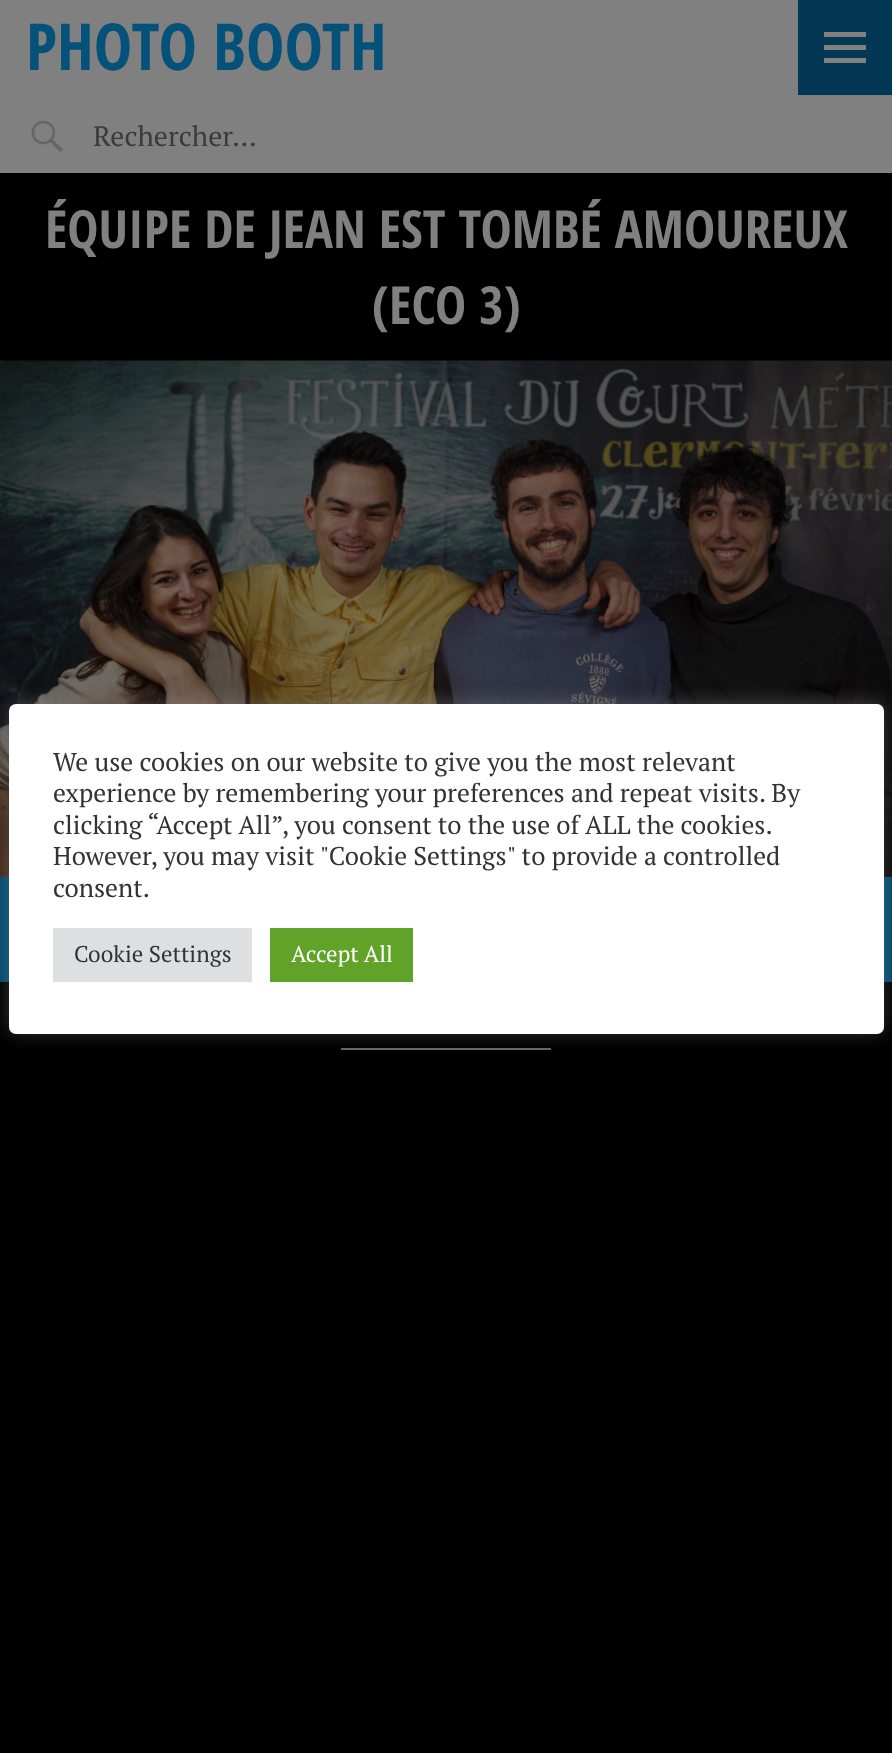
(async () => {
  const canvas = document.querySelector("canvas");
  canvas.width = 892;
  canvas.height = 1753;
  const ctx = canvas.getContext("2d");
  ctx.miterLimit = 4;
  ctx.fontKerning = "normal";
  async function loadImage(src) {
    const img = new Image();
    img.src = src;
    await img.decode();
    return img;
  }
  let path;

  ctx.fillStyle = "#000000";
  ctx.fillRect(0, 0, 892, 1753);
  ctx.fillStyle = "#808080";
  ctx.fillRect(0, 0, 892, 173);
  ctx.fillStyle = "#033854";
  ctx.fillRect(798, 0, 94, 95);
  ctx.fillStyle = "#808080";
  path = new Path2D("M824 63V58H866V63ZM824 32H866V37H824ZM824 50V45H866V50Z");
  ctx.fill(path);
  ctx.drawImage(await loadImage("img/1.png"), 31, 120, 32, 32);
  ctx.drawImage(await loadImage("img/2.png"), 0, 360, 892, 517);
  for (const [x, y, w, h, color] of [
    [341, 1048, 210, 2, "#666666"],
    [0, 877, 9, 105, "#03496d"],
    [884, 877, 8, 105, "#03496d"],
  ]) {
    ctx.fillStyle = color;
    ctx.fillRect(x, y, w, h);
  }
  ctx.fillStyle = "rgba(172, 171, 171, 0.3)";
  ctx.filter = "blur(9px)";
  ctx.beginPath();
  ctx.roundRect(9, 702, 875, 331, 7);
  ctx.fill();
  ctx.filter = "none";
  ctx.fillStyle = "#ffffff";
  ctx.beginPath();
  ctx.roundRect(9, 704, 875, 330, 7);
  ctx.fill();
  ctx.fillStyle = "#dedfe0";
  ctx.fillRect(53, 928, 199, 54);
  ctx.fillStyle = "#61a229";
  ctx.fillRect(270, 928, 143, 54);
  ctx.font = "bold 64.75px Open Sans Condensed";
  ctx.fillStyle = "#045179";
  ctx.fillText("PHOTO BOOTH", 26, 70);
  ctx.font = "28px PT Serif";
  ctx.fillStyle = "#3b3b3b";
  ctx.fillText("Rechercher…", 93, 146);
  ctx.font = "bold 52.5px Open Sans Condensed";
  ctx.fillStyle = "#808080";
  ctx.fillText("ÉQUIPE DE JEAN EST TOMBÉ AMOUREUX", 45, 248);
  ctx.fillText("(ECO 3)", 372, 324);
  ctx.font = "25.7px PT Serif";
  ctx.fillStyle = "#333333";
  ctx.fillText("We use cookies on our website to give you the most relevant", 53, 771);
  ctx.fillText("experience by remembering your preferences and repeat visits. By", 53, 802);
  ctx.wordSpacing = "-0.1px";
  ctx.fillText("clicking “Accept All”, you consent to the use of ALL the cookies.", 53, 834);
  ctx.wordSpacing = "0px";
  ctx.fillText("However, you may visit \"Cookie Settings\" to provide a controlled", 53, 865);
  ctx.fillText("consent.", 53, 897);
  ctx.font = "22.75px PT Serif";
  ctx.fillText("Cookie Settings", 74, 962);
  ctx.fillStyle = "#ffffff";
  ctx.fillText("Accept All", 291, 962);
})();
